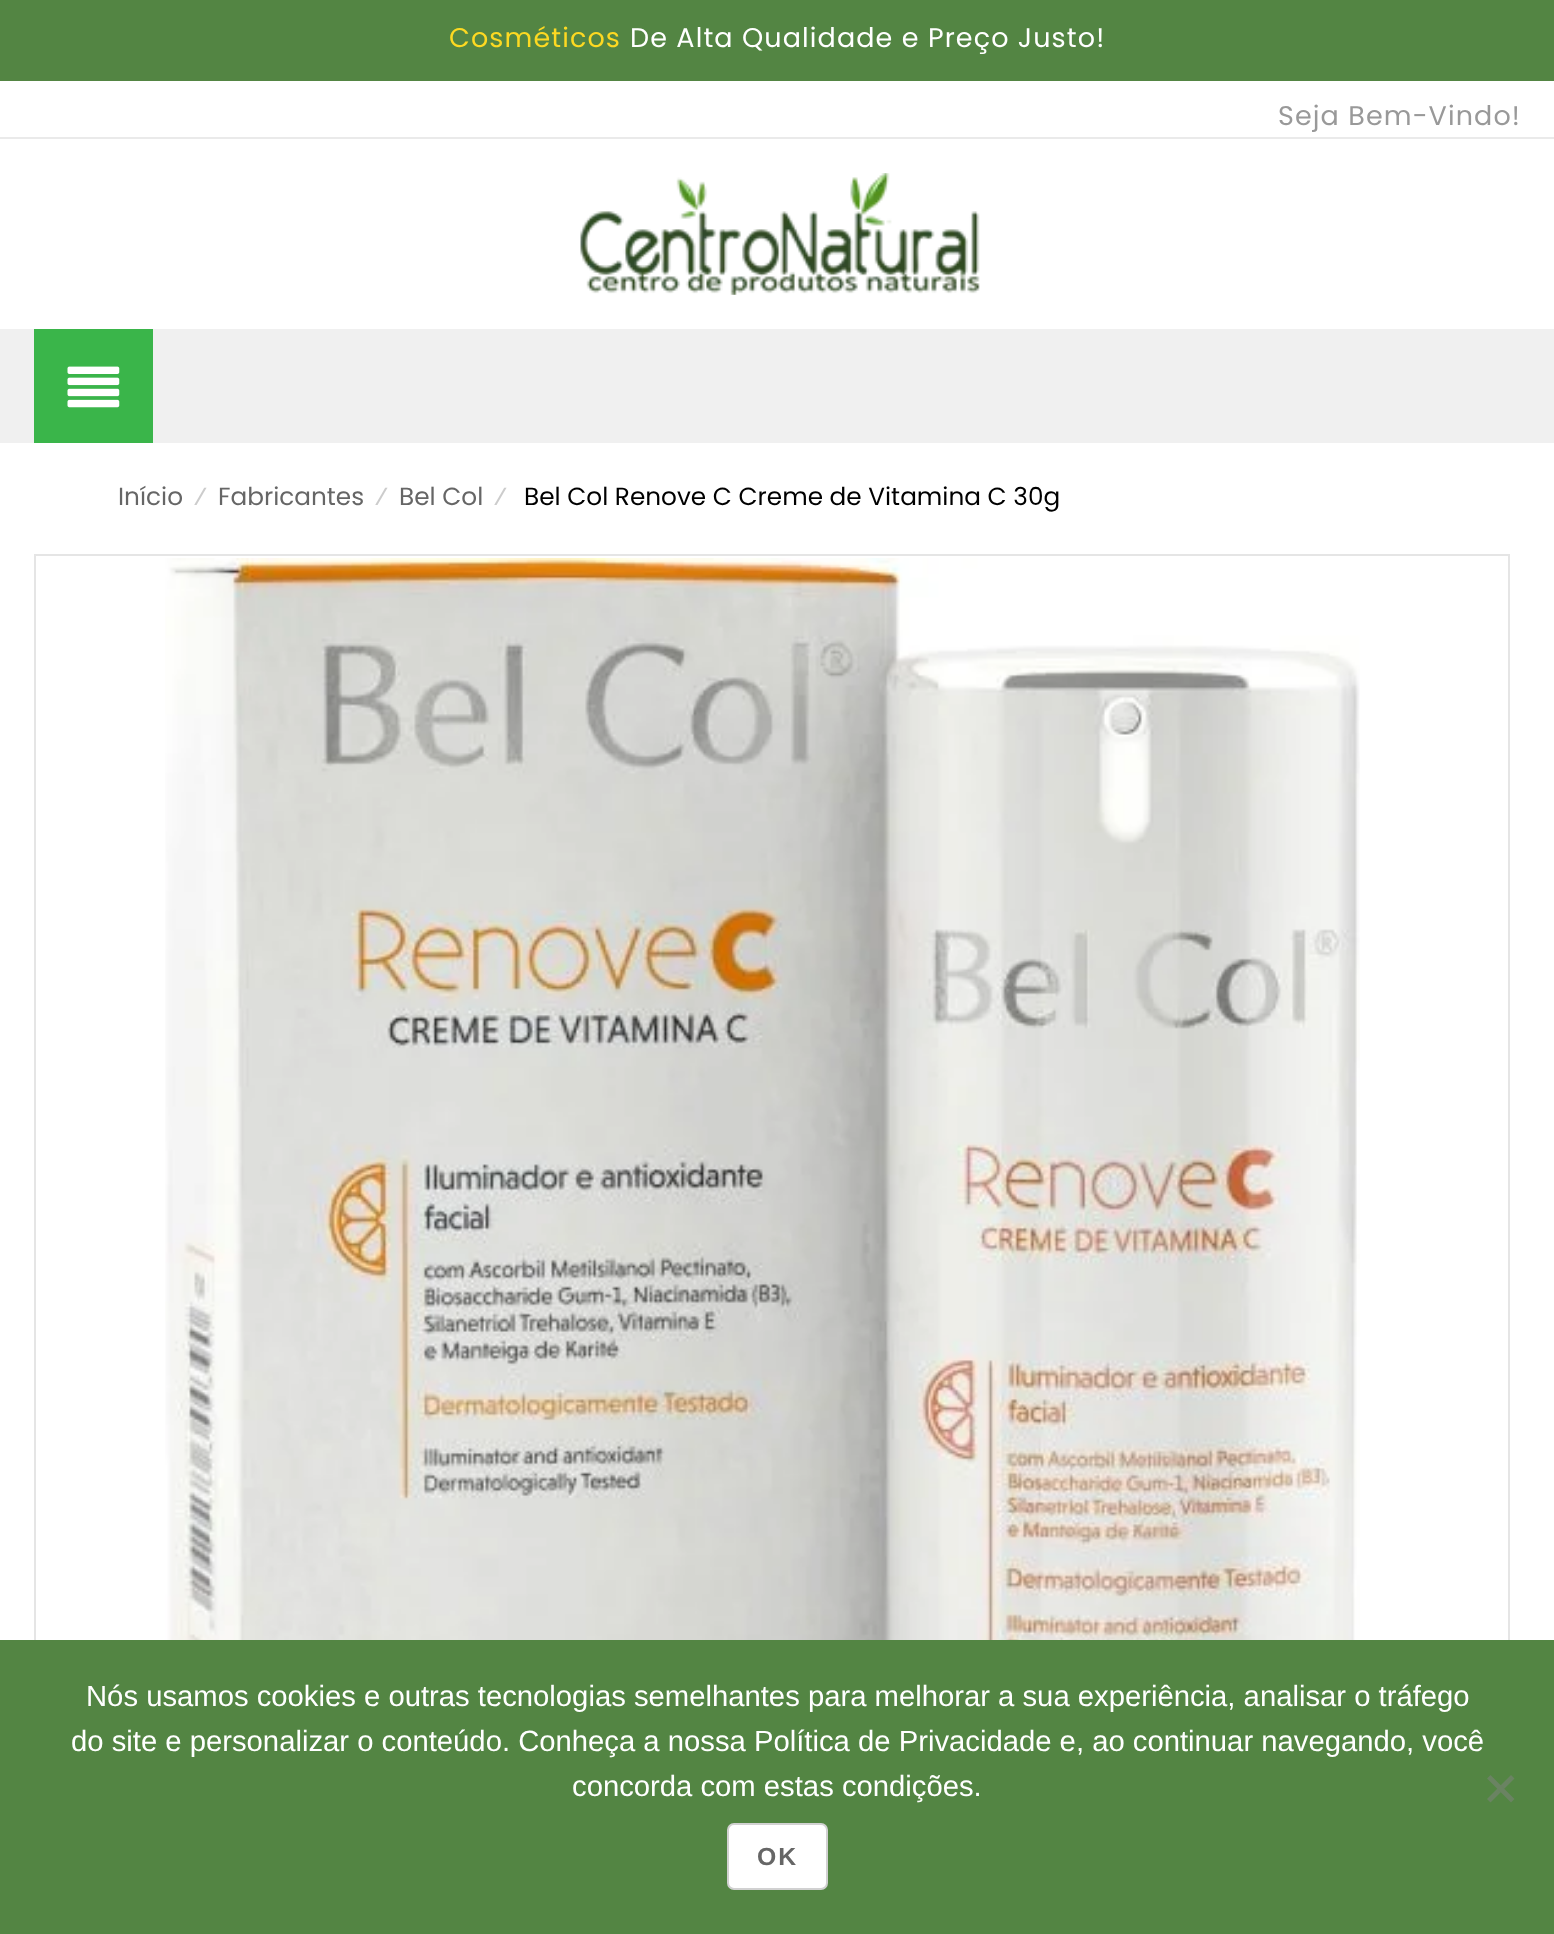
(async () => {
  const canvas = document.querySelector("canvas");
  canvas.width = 1554;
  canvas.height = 1934;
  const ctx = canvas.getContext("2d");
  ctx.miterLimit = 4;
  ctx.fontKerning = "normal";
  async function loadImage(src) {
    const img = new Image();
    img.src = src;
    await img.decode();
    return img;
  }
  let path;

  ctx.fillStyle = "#ffffff";
  ctx.fillRect(0, 0, 1554, 1934);
  ctx.fillStyle = "#538543";
  ctx.fillRect(0, 0, 1554, 81);
  ctx.fillStyle = "#eaeaea";
  ctx.fillRect(0, 137, 1554, 2);
  ctx.drawImage(await loadImage("img/1.png"), 580, 173, 400, 122);
  ctx.fillStyle = "#f0f0f0";
  ctx.fillRect(0, 329, 1554, 114);
  ctx.fillStyle = "#3ab54a";
  ctx.fillRect(34, 329, 119, 114);
  ctx.drawImage(await loadImage("img/2.png"), 67, 366, 53, 42);
  ctx.strokeStyle = "#e5e5e5";
  ctx.lineWidth = 2;
  ctx.strokeRect(35, 555, 1474, 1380);
  ctx.drawImage(await loadImage("img/3.png"), 165, 558, 1195, 1082);
  ctx.fillStyle = "#538543";
  ctx.fillRect(0, 1640, 1554, 294);
  ctx.fillStyle = "#6a8362";
  path = new Path2D("M1511 1775L1514.5 1778.5L1490.5 1802.5L1487 1799Z");
  ctx.fill(path);
  path = new Path2D("M1487 1778.5L1490.5 1775L1514.5 1799L1511 1802.5Z");
  ctx.fill(path);
  ctx.fillStyle = "#ffffff";
  ctx.beginPath();
  ctx.roundRect(728, 1824, 99, 65, 6);
  ctx.fill();
  ctx.strokeStyle = "#d1d1d1";
  ctx.stroke();
  ctx.letterSpacing = "1.1px";
  ctx.font = "27px Poppins";
  ctx.fillStyle = "#fdd922";
  ctx.fillText("Cosméticos", 449, 47);
  ctx.fillStyle = "#ffffff";
  ctx.fillText("De Alta Qualidade e Preço Justo!", 630, 47);
  ctx.fillStyle = "#999999";
  ctx.fillText("Seja Bem-Vindo!", 1278, 125);
  ctx.letterSpacing = "0px";
  ctx.font = "24.75px Poppins";
  ctx.fillStyle = "#666666";
  ctx.fillText("Início", 118, 505);
  ctx.fillStyle = "#cccccc";
  ctx.fillText("⁄", 194, 505);
  ctx.fillStyle = "#666666";
  ctx.fillText("Fabricantes", 218, 505);
  ctx.fillStyle = "#cccccc";
  ctx.fillText("⁄", 375, 505);
  ctx.fillStyle = "#666666";
  ctx.fillText("Bel Col", 399, 505);
  ctx.fillStyle = "#cccccc";
  ctx.fillText("⁄", 494, 505);
  ctx.fillStyle = "#000000";
  ctx.fillText("Bel Col Renove C Creme de Vitamina C 30g", 524, 505);
  ctx.font = "29.25px Liberation Sans";
  ctx.fillStyle = "#ffffff";
  for (const [text, x, y] of [
    ["Nós usamos cookies e outras tecnologias semelhantes para melhorar a sua experiência, analisar o tráfego", 86, 1706],
    ["do site e personalizar o conteúdo. Conheça a nossa Política de Privacidade e, ao continuar navegando, você", 71, 1751],
    ["concorda com estas condições.", 572, 1796],
  ]) {
    ctx.fillText(text, x, y);
  }
  ctx.letterSpacing = "2px";
  ctx.font = "bold 24.75px Liberation Sans";
  ctx.fillStyle = "#666666";
  ctx.fillText("OK", 757, 1865);
})();
